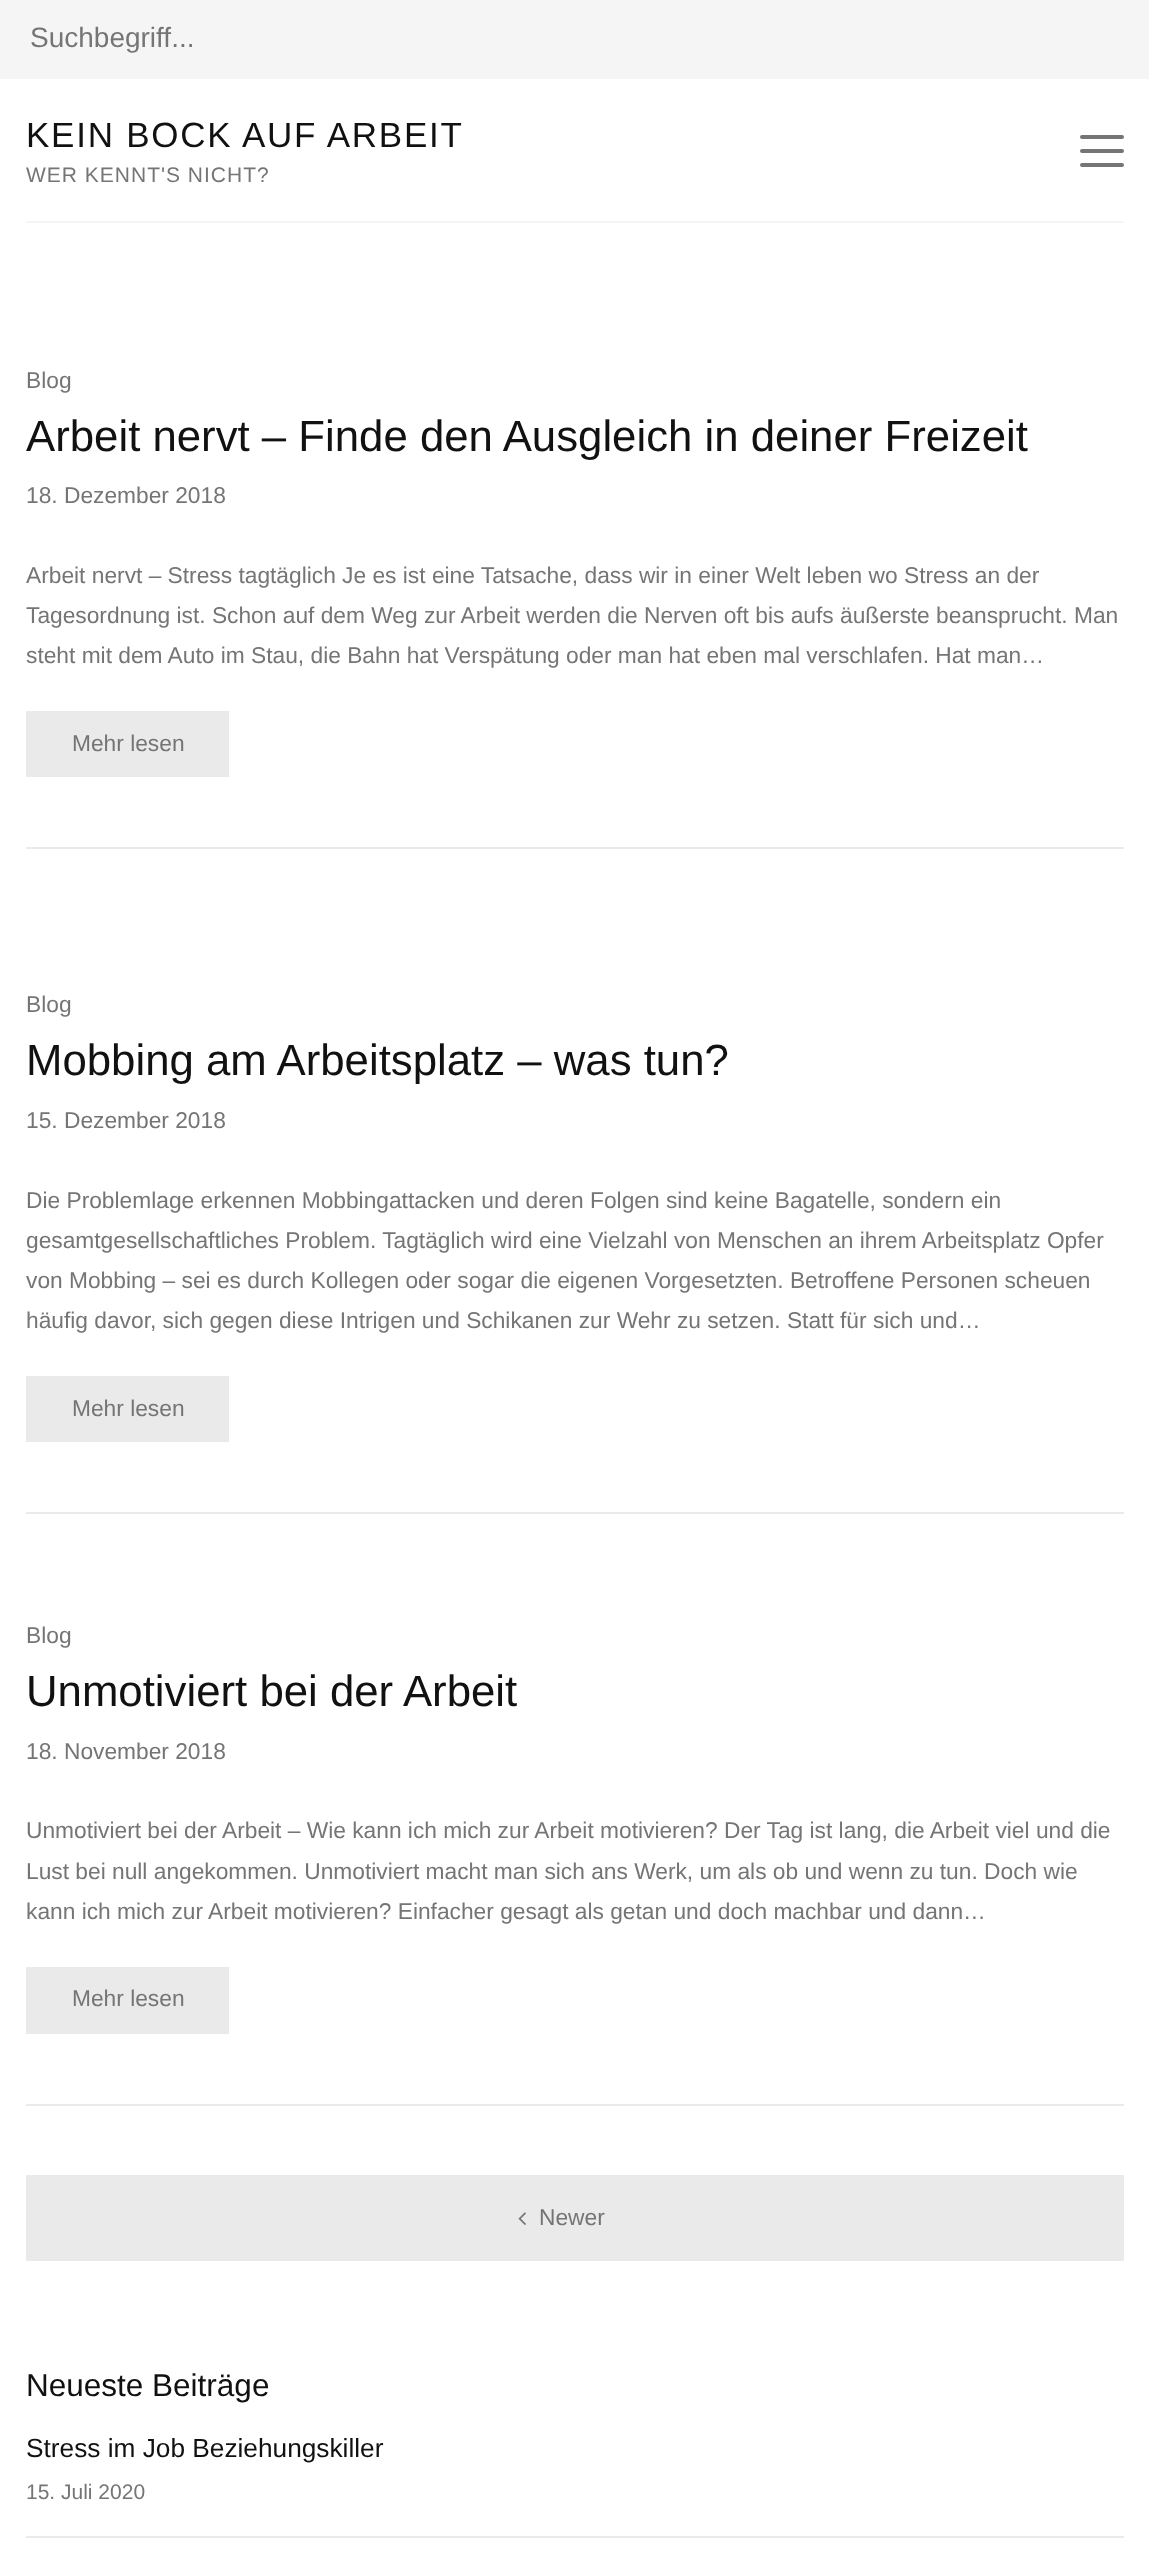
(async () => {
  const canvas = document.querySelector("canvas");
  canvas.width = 1149;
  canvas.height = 2554;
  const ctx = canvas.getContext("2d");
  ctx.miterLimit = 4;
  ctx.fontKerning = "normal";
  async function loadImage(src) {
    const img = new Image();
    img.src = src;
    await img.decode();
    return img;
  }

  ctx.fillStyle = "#ffffff";
  ctx.fillRect(0, 0, 1149, 2554);
  ctx.fillStyle = "#f5f5f5";
  ctx.fillRect(0, 0, 1149, 79);
  ctx.fillRect(26, 221, 1098, 2);
  ctx.fillStyle = "#757575";
  ctx.beginPath();
  ctx.roundRect(1080, 135, 44, 4, 2);
  ctx.fill();
  ctx.beginPath();
  ctx.roundRect(1080, 149, 44, 4, 2);
  ctx.fill();
  ctx.beginPath();
  ctx.roundRect(1080, 163, 44, 4, 2);
  ctx.fill();
  for (const [x, y, w, h, color] of [
    [26, 847, 1098, 2, "#eaeaea"],
    [26, 711, 203, 66, "#eaeaea"],
    [26, 1512, 1098, 2, "#eaeaea"],
    [26, 1376, 203, 66, "#eaeaea"],
    [26, 2104, 1098, 2, "#eaeaea"],
    [26, 1967, 203, 67, "#eaeaea"],
    [26, 2175, 1098, 86, "#eaeaea"],
  ]) {
    ctx.fillStyle = color;
    ctx.fillRect(x, y, w, h);
  }
  ctx.drawImage(await loadImage("img/1.png"), 518, 2212, 8, 13);
  ctx.fillRect(26, 2536, 1098, 2);
  ctx.font = "28px Liberation Sans";
  ctx.fillStyle = "#757575";
  ctx.fillText("Suchbegriff...", 30, 47);
  ctx.letterSpacing = "1.75px";
  ctx.font = "35px Liberation Sans";
  ctx.fillStyle = "#111111";
  ctx.fillText("KEIN BOCK AUF ARBEIT", 26, 147);
  ctx.letterSpacing = "1px";
  ctx.font = "21px Liberation Sans";
  ctx.fillStyle = "#757575";
  ctx.fillText("WER KENNT'S NICHT?", 26, 182);
  ctx.letterSpacing = "0px";
  ctx.font = "22.75px Liberation Sans";
  ctx.fillText("Blog", 26, 388);
  ctx.font = "43.75px Liberation Sans";
  ctx.fillStyle = "#111111";
  ctx.fillText("Arbeit nervt – Finde den Ausgleich in deiner Freizeit", 26, 451);
  ctx.font = "22.75px Liberation Sans";
  ctx.fillStyle = "#757575";
  for (const [text, x, y] of [
    ["18. Dezember 2018", 26, 503],
    ["Arbeit nervt – Stress tagtäglich Je es ist eine Tatsache, dass wir in einer Welt leben wo Stress an der", 26, 583],
    ["Tagesordnung ist. Schon auf dem Weg zur Arbeit werden die Nerven oft bis aufs äußerste beansprucht. Man", 26, 623],
    ["steht mit dem Auto im Stau, die Bahn hat Verspätung oder man hat eben mal verschlafen. Hat man…", 26, 663],
    ["Mehr lesen", 72, 751],
    ["Blog", 26, 1012],
  ]) {
    ctx.fillText(text, x, y);
  }
  ctx.font = "43.75px Liberation Sans";
  ctx.fillStyle = "#111111";
  ctx.fillText("Mobbing am Arbeitsplatz – was tun?", 26, 1075);
  ctx.font = "22.75px Liberation Sans";
  ctx.fillStyle = "#757575";
  for (const [text, x, y] of [
    ["15. Dezember 2018", 26, 1128],
    ["Die Problemlage erkennen Mobbingattacken und deren Folgen sind keine Bagatelle, sondern ein", 26, 1208],
    ["gesamtgesellschaftliches Problem. Tagtäglich wird eine Vielzahl von Menschen an ihrem Arbeitsplatz Opfer", 26, 1248],
    ["von Mobbing – sei es durch Kollegen oder sogar die eigenen Vorgesetzten. Betroffene Personen scheuen", 26, 1288],
    ["häufig davor, sich gegen diese Intrigen und Schikanen zur Wehr zu setzen. Statt für sich und…", 26, 1328],
    ["Mehr lesen", 72, 1416],
    ["Blog", 26, 1643],
  ]) {
    ctx.fillText(text, x, y);
  }
  ctx.font = "43.75px Liberation Sans";
  ctx.fillStyle = "#111111";
  ctx.fillText("Unmotiviert bei der Arbeit", 26, 1706);
  ctx.font = "22.75px Liberation Sans";
  ctx.fillStyle = "#757575";
  for (const [text, x, y] of [
    ["18. November 2018", 26, 1759],
    ["Unmotiviert bei der Arbeit – Wie kann ich mich zur Arbeit motivieren? Der Tag ist lang, die Arbeit viel und die", 26, 1838],
    ["Lust bei null angekommen. Unmotiviert macht man sich ans Werk, um als ob und wenn zu tun. Doch wie", 26, 1879],
    ["kann ich mich zur Arbeit motivieren? Einfacher gesagt als getan und doch machbar und dann…", 26, 1919],
    ["Mehr lesen", 72, 2006],
    ["Newer", 539, 2225],
  ]) {
    ctx.fillText(text, x, y);
  }
  ctx.font = "31.5px Liberation Sans";
  ctx.fillStyle = "#111111";
  ctx.fillText("Neueste Beiträge", 26, 2396);
  ctx.font = "26.25px Liberation Sans";
  ctx.fillText("Stress im Job Beziehungskiller", 26, 2457);
  ctx.font = "21px Liberation Sans";
  ctx.fillStyle = "#757575";
  ctx.fillText("15. Juli 2020", 26, 2499);
})();
